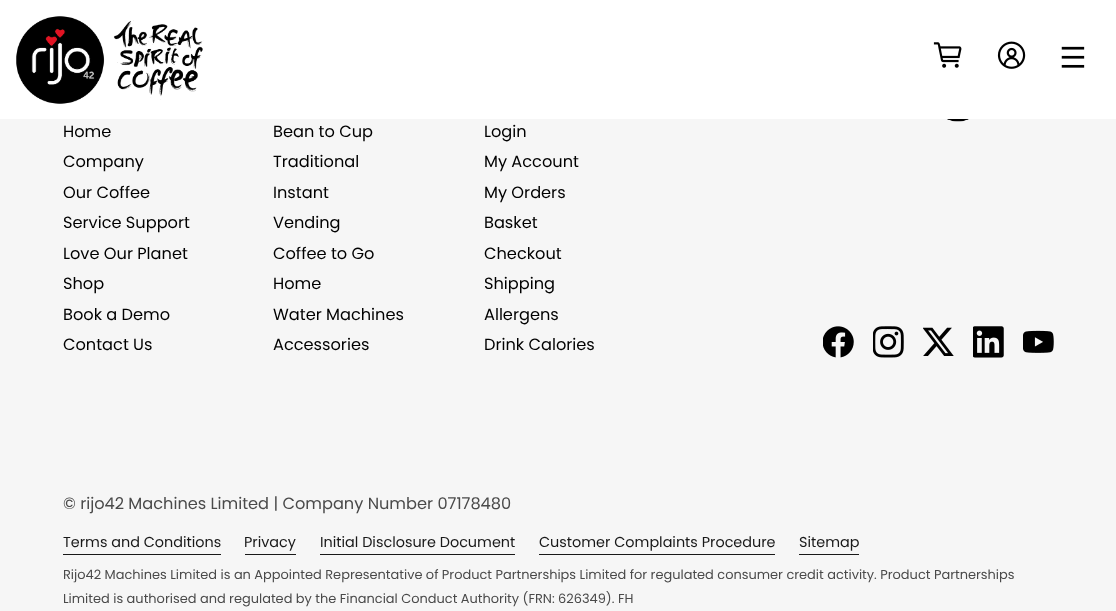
(async () => {
  const canvas = document.querySelector("canvas");
  canvas.width = 1116;
  canvas.height = 611;
  const ctx = canvas.getContext("2d");
  ctx.miterLimit = 4;
  ctx.fontKerning = "normal";
  async function loadImage(src) {
    const img = new Image();
    img.src = src;
    await img.decode();
    return img;
  }

  ctx.fillStyle = "#f6f6f6";
  ctx.fillRect(0, 0, 1116, 611);
  ctx.fillStyle = "#ffffff";
  ctx.fillRect(0, 0, 1116, 119);
  ctx.drawImage(await loadImage("img/1.png"), 16, 16, 188, 88);
  ctx.drawImage(await loadImage("img/2.png"), 933, 42, 29, 26);
  ctx.drawImage(await loadImage("img/3.png"), 997, 41, 29, 28);
  ctx.drawImage(await loadImage("img/4.png"), 1061, 46, 24, 22);
  ctx.drawImage(await loadImage("img/5.png"), 947, 119, 22, 3);
  ctx.drawImage(await loadImage("img/6.png"), 823, 326, 31, 32);
  ctx.drawImage(await loadImage("img/7.png"), 873, 326, 31, 32);
  ctx.drawImage(await loadImage("img/8.png"), 923, 327, 31, 29);
  ctx.drawImage(await loadImage("img/9.png"), 973, 326, 31, 32);
  ctx.drawImage(await loadImage("img/10.png"), 1023, 330, 31, 23);
  for (const [x, y, w, h, color] of [
    [63, 554, 158, 1, "#191919"],
    [245, 554, 51, 1, "#191919"],
    [320, 554, 195, 1, "#191919"],
    [539, 554, 236, 1, "#191919"],
    [799, 554, 60, 1, "#191919"],
  ]) {
    ctx.fillStyle = color;
    ctx.fillRect(x, y, w, h);
  }
  ctx.font = "16.2px Poppins";
  ctx.fillStyle = "#000000";
  for (const [text, x, y] of [
    ["Home", 63, 137],
    ["Company", 63, 167],
    ["Our Coffee", 63, 198],
    ["Service Support", 63, 228],
    ["Love Our Planet", 63, 259],
    ["Shop", 63, 289],
    ["Book a Demo", 63, 320],
    ["Contact Us", 63, 350],
    ["Bean to Cup", 273, 137],
    ["Traditional", 273, 167],
    ["Instant", 273, 198],
    ["Vending", 273, 228],
    ["Coffee to Go", 273, 259],
    ["Home", 273, 289],
    ["Water Machines", 273, 320],
    ["Accessories", 273, 350],
    ["Login", 484, 137],
    ["My Account", 484, 167],
    ["My Orders", 484, 198],
    ["Basket", 484, 228],
    ["Checkout", 484, 259],
    ["Shipping", 484, 289],
    ["Allergens", 484, 320],
    ["Drink Calories", 484, 350],
  ]) {
    ctx.fillText(text, x, y);
  }
  ctx.fillStyle = "#4a4a4a";
  ctx.fillText("© rijo42 Machines Limited | Company Number 07178480", 63, 509);
  ctx.font = "14.4px Poppins";
  ctx.fillStyle = "#191919";
  for (const [text, x, y] of [
    ["Terms and Conditions", 63, 547],
    ["Privacy", 244, 547],
    ["Initial Disclosure Document", 320, 547],
    ["Customer Complaints Procedure", 539, 547],
    ["Sitemap", 799, 547],
  ]) {
    ctx.fillText(text, x, y);
  }
  ctx.font = "12.95px Poppins";
  ctx.fillStyle = "#4a4a4a";
  ctx.fillText("Rijo42 Machines Limited is an Appointed Representative of Product Partnerships Limited for regulated consumer credit activity. Product Partnerships", 63, 579);
  ctx.fillText("Limited is authorised and regulated by the Financial Conduct Authority (FRN: 626349). FH", 63, 603);
})();
